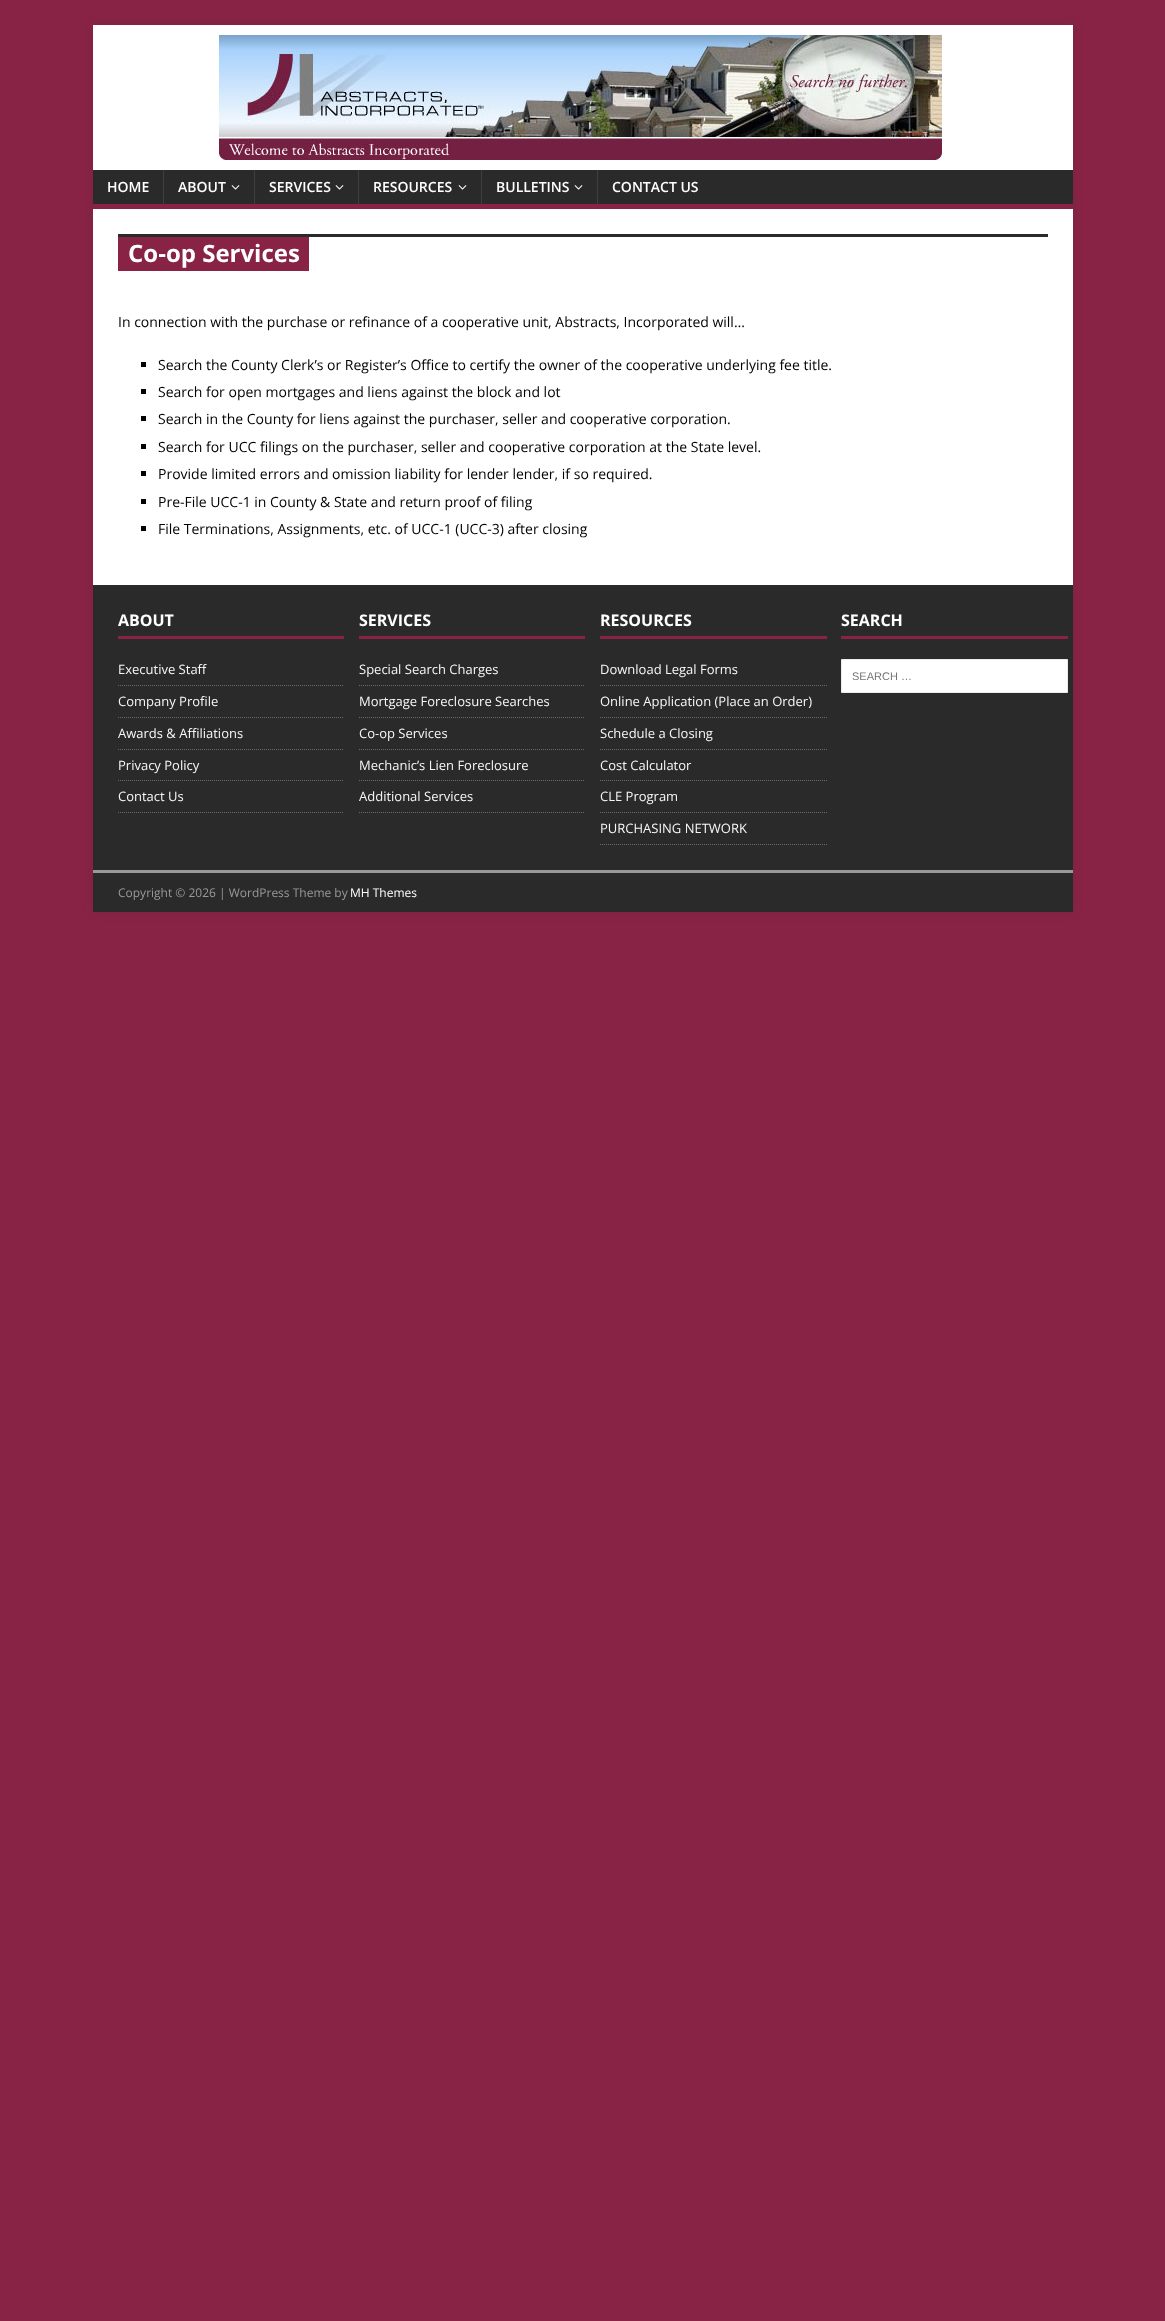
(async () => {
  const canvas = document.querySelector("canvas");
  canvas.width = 1165;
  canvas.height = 2321;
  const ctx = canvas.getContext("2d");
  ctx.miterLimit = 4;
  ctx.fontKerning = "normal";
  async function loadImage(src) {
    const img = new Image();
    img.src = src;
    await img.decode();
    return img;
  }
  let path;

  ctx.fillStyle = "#882345";
  ctx.fillRect(0, 0, 1165, 2321);
  ctx.fillStyle = "rgba(50, 50, 50, 0.17)";
  ctx.filter = "blur(5px)";
  ctx.beginPath();
  ctx.rect(93, 25, 980, 887);
  ctx.fill();
  ctx.filter = "none";
  ctx.fillStyle = "#ffffff";
  ctx.fillRect(93, 25, 980, 145);
  ctx.drawImage(await loadImage("img/1.png"), 219, 35, 723, 125);
  for (const [x, y, w, h, color] of [
    [93, 170, 980, 34, "#2a2a2a"],
    [93, 204, 980, 5, "#882345"],
    [163, 170, 1, 34, "#3f3f3f"],
  ]) {
    ctx.fillStyle = color;
    ctx.fillRect(x, y, w, h);
  }
  ctx.drawImage(await loadImage("img/2.png"), 231, 185, 9, 5);
  ctx.fillRect(254, 170, 1, 34);
  ctx.drawImage(await loadImage("img/2.png"), 335, 185, 9, 5);
  ctx.fillRect(358, 170, 1, 34);
  ctx.drawImage(await loadImage("img/2.png"), 458, 185, 9, 5);
  ctx.fillRect(481, 170, 1, 34);
  ctx.drawImage(await loadImage("img/2.png"), 574, 185, 9, 5);
  for (const [x, y, w, h, color] of [
    [597, 170, 1, 34, "#3f3f3f"],
    [93, 209, 980, 376, "#ffffff"],
    [118, 234, 930, 3, "#2a2a2a"],
    [118, 237, 191, 34, "#882345"],
    [141, 362, 5, 5, "#000000"],
    [141, 389, 5, 5, "#000000"],
    [141, 416, 5, 5, "#000000"],
    [141, 444, 5, 5, "#000000"],
    [141, 471, 5, 5, "#000000"],
    [141, 499, 5, 5, "#000000"],
    [141, 526, 5, 5, "#000000"],
    [93, 585, 980, 285, "#2a2a2a"],
    [118, 636, 226, 3, "#882345"],
  ]) {
    ctx.fillStyle = color;
    ctx.fillRect(x, y, w, h);
  }
  path = new Path2D("M118 685.5H344");
  ctx.strokeStyle = "#6a6a6a";
  ctx.setLineDash([1, 1]);
  ctx.stroke(path);
  path = new Path2D("M118 717.5H344");
  ctx.stroke(path);
  path = new Path2D("M118 749.5H344");
  ctx.stroke(path);
  path = new Path2D("M118 780.5H344");
  ctx.stroke(path);
  path = new Path2D("M118 812.5H344");
  ctx.stroke(path);
  ctx.fillRect(359, 636, 226, 3);
  path = new Path2D("M359 685.5H585");
  ctx.stroke(path);
  path = new Path2D("M359 717.5H585");
  ctx.stroke(path);
  path = new Path2D("M359 749.5H585");
  ctx.stroke(path);
  path = new Path2D("M359 780.5H585");
  ctx.stroke(path);
  path = new Path2D("M359 812.5H585");
  ctx.stroke(path);
  ctx.fillRect(600, 636, 227, 3);
  path = new Path2D("M600 685.5H827");
  ctx.stroke(path);
  path = new Path2D("M600 717.5H827");
  ctx.stroke(path);
  path = new Path2D("M600 749.5H827");
  ctx.stroke(path);
  path = new Path2D("M600 780.5H827");
  ctx.stroke(path);
  path = new Path2D("M600 812.5H827");
  ctx.stroke(path);
  path = new Path2D("M600 844.5H827");
  ctx.stroke(path);
  ctx.fillRect(841, 636, 227, 3);
  ctx.fillStyle = "#ffffff";
  ctx.beginPath();
  ctx.rect(841.5, 659.5, 226, 33);
  ctx.fill();
  ctx.strokeStyle = "#ebebeb";
  ctx.setLineDash([]);
  ctx.stroke();
  ctx.fillStyle = "#2a2a2a";
  ctx.fillRect(93, 873, 980, 39);
  ctx.fillStyle = "#999999";
  ctx.fillRect(93, 870, 980, 3);
  ctx.font = "600 14px Open Sans";
  ctx.fillStyle = "#ffffff";
  for (const [text, x, y] of [
    ["HOME", 107, 192],
    ["ABOUT", 178, 192],
    ["SERVICES", 269, 192],
    ["RESOURCES", 373, 192],
    ["BULLETINS", 496, 192],
    ["CONTACT US", 612, 192],
  ]) {
    ctx.fillText(text, x, y);
  }
  ctx.font = "bold 24px Open Sans";
  ctx.fillText("Co-op Services", 128, 262);
  ctx.font = "14px Open Sans";
  ctx.fillStyle = "#000000";
  for (const [text, x, y] of [
    ["In connection with the purchase or refinance of a cooperative unit, Abstracts, Incorporated will…", 118, 327],
    ["Search the County Clerk’s or Register’s Office to certify the owner of the cooperative underlying fee title.", 158, 370],
    ["Search for open mortgages and liens against the block and lot", 158, 397],
    ["Search in the County for liens against the purchaser, seller and cooperative corporation.", 158, 424],
    ["Search for UCC filings on the purchaser, seller and cooperative corporation at the State level.", 158, 452],
    ["Provide limited errors and omission liability for lender lender, if so required.", 158, 479],
    ["Pre-File UCC-1 in County & State and return proof of filing", 158, 507],
    ["File Terminations, Assignments, etc. of UCC-1 (UCC-3) after closing", 158, 534],
  ]) {
    ctx.fillText(text, x, y);
  }
  ctx.font = "bold 16px Open Sans";
  ctx.fillStyle = "#ffffff";
  ctx.fillText("ABOUT", 118, 626);
  ctx.font = "13px Open Sans";
  ctx.fillStyle = "#f7f7f7";
  for (const [text, x, y] of [
    ["Executive Staff", 118, 674],
    ["Company Profile", 118, 706],
    ["Awards & Affiliations", 118, 738],
    ["Privacy Policy", 118, 770],
    ["Contact Us", 118, 801],
  ]) {
    ctx.fillText(text, x, y);
  }
  ctx.font = "bold 16px Open Sans";
  ctx.fillStyle = "#ffffff";
  ctx.fillText("SERVICES", 359, 626);
  ctx.font = "13px Open Sans";
  ctx.fillStyle = "#f7f7f7";
  for (const [text, x, y] of [
    ["Special Search Charges", 359, 674],
    ["Mortgage Foreclosure Searches", 359, 706],
    ["Co-op Services", 359, 738],
    ["Mechanic’s Lien Foreclosure", 359, 770],
    ["Additional Services", 359, 801],
  ]) {
    ctx.fillText(text, x, y);
  }
  ctx.font = "bold 16px Open Sans";
  ctx.fillStyle = "#ffffff";
  ctx.fillText("RESOURCES", 600, 626);
  ctx.font = "13px Open Sans";
  ctx.fillStyle = "#f7f7f7";
  for (const [text, x, y] of [
    ["Download Legal Forms", 600, 674],
    ["Online Application (Place an Order)", 600, 706],
    ["Schedule a Closing", 600, 738],
    ["Cost Calculator", 600, 770],
    ["CLE Program", 600, 801],
    ["PURCHASING NETWORK", 600, 833],
  ]) {
    ctx.fillText(text, x, y);
  }
  ctx.font = "bold 16px Open Sans";
  ctx.fillStyle = "#ffffff";
  ctx.fillText("SEARCH", 841, 626);
  ctx.font = "11px Liberation Sans";
  ctx.fillStyle = "#757575";
  ctx.fillText("SEARCH …", 852, 680);
  ctx.font = "12px Open Sans";
  ctx.fillStyle = "#999999";
  ctx.fillText("Copyright © 2026 | WordPress Theme by", 118, 897);
  ctx.fillStyle = "#ffffff";
  ctx.fillText("MH Themes", 350, 897);
})();
